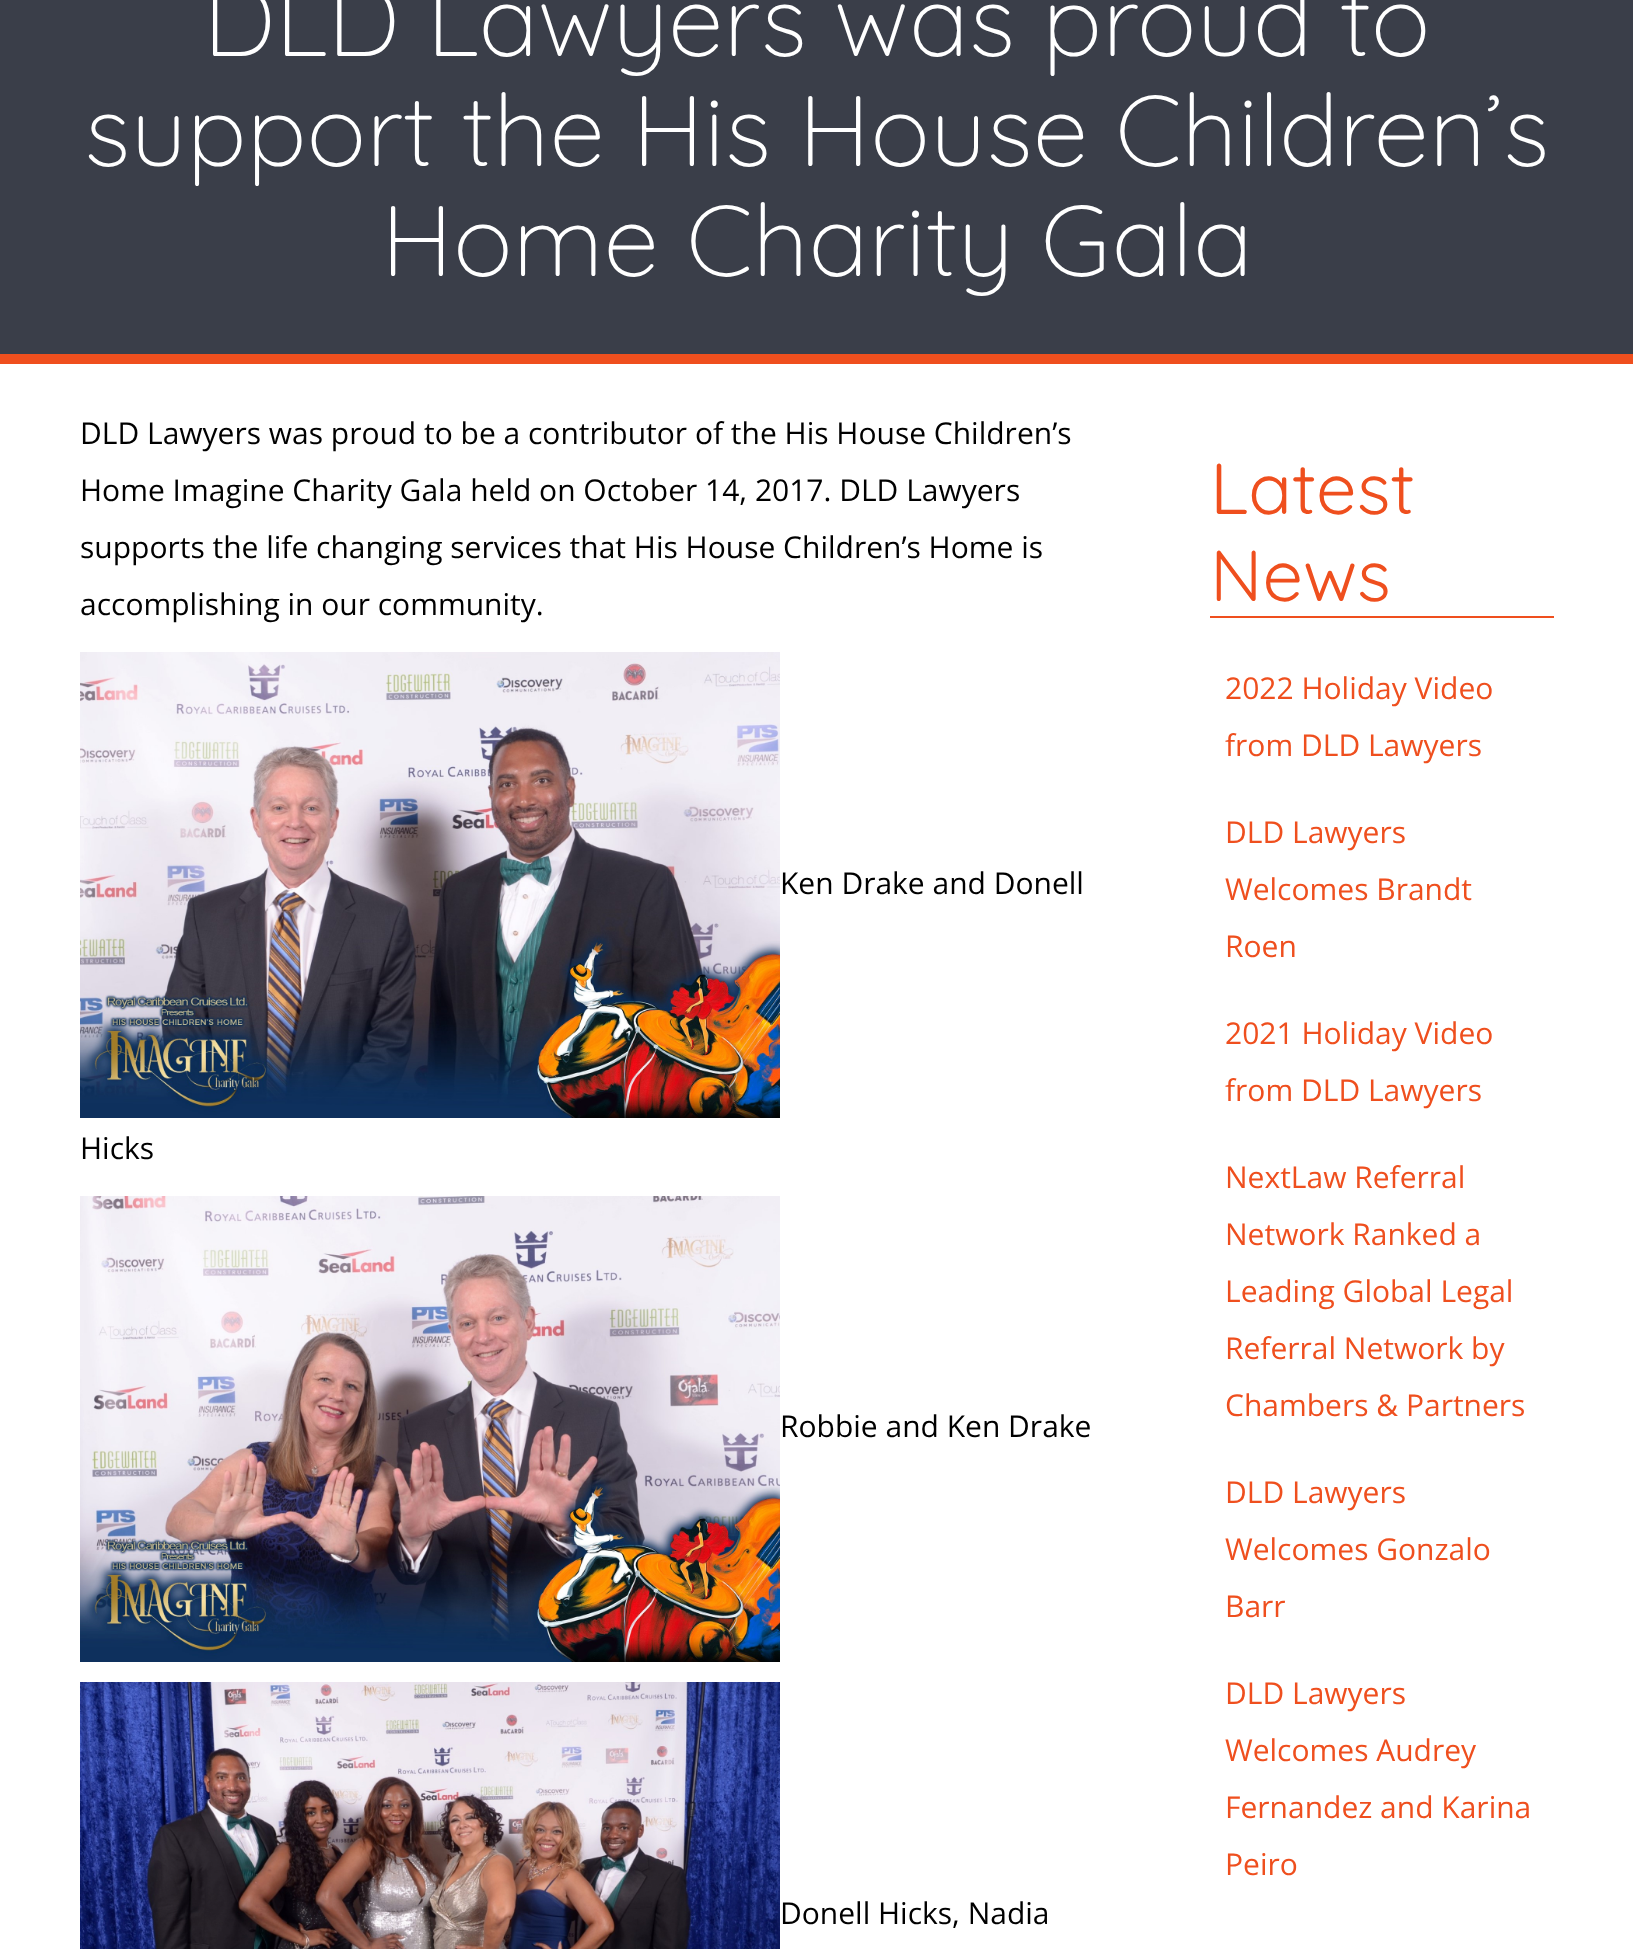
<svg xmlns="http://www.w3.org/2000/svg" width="1633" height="1949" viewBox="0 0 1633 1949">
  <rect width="100%" height="100%" fill="#3a3e49"/>
  <rect x="0" y="354" width="1633" height="10" fill="#ef4f1e"/>
  <text x="203" y="56" font-family="Quicksand" font-size="100" font-weight="300" fill="#ffffff">DLD Lawyers was proud to</text>
  <text x="84" y="166" font-family="Quicksand" font-size="100" font-weight="300" fill="#ffffff">support the His House Children’s</text>
  <text x="381" y="276" font-family="Quicksand" font-size="100" font-weight="300" fill="#ffffff">Home Charity Gala</text>
  <rect x="0" y="364" width="1633" height="1585" fill="#ffffff"/>
  <text x="80" y="444" font-family="Open Sans" font-size="30" fill="#000000">DLD Lawyers was proud to be a contributor of the His House Children’s</text>
  <text x="80" y="501" font-family="Open Sans" font-size="30" fill="#000000">Home Imagine Charity Gala held on October 14, 2017. DLD Lawyers</text>
  <text x="80" y="558" font-family="Open Sans" font-size="30" fill="#000000">supports the life changing services that His House Children’s Home is</text>
  <text x="80" y="615" font-family="Open Sans" font-size="30" fill="#000000">accomplishing in our community.</text>
  <image x="80" y="652" width="700" height="466" href="img1.png"/>
  <text x="780" y="894" font-family="Open Sans" font-size="30" fill="#000000">Ken Drake and Donell</text>
  <text x="80" y="1159" font-family="Open Sans" font-size="30" fill="#000000">Hicks</text>
  <image x="80" y="1196" width="700" height="466" href="img2.png"/>
  <text x="780" y="1437" font-family="Open Sans" font-size="30" fill="#000000">Robbie and Ken Drake</text>
  <image x="80" y="1682" width="700" height="267" href="img3.png"/>
  <text x="780" y="1924" font-family="Open Sans" font-size="30" fill="#000000">Donell Hicks, Nadia</text>
  <rect x="1210" y="616" width="344" height="2" fill="#ef4f1e"/>
  <text x="1210" y="514" font-family="Quicksand" font-size="72" fill="#ef4f1e">Latest</text>
  <text x="1210" y="601" font-family="Quicksand" font-size="72" fill="#ef4f1e">News</text>
  <text x="1225" y="699" font-family="Open Sans" font-size="30" fill="#ef4f1e">2022 Holiday Video</text>
  <text x="1225" y="756" font-family="Open Sans" font-size="30" fill="#ef4f1e">from DLD Lawyers</text>
  <text x="1225" y="843" font-family="Open Sans" font-size="30" fill="#ef4f1e">DLD Lawyers</text>
  <text x="1225" y="900" font-family="Open Sans" font-size="30" fill="#ef4f1e">Welcomes Brandt</text>
  <text x="1225" y="957" font-family="Open Sans" font-size="30" fill="#ef4f1e">Roen</text>
  <text x="1225" y="1044" font-family="Open Sans" font-size="30" fill="#ef4f1e">2021 Holiday Video</text>
  <text x="1225" y="1101" font-family="Open Sans" font-size="30" fill="#ef4f1e">from DLD Lawyers</text>
  <text x="1225" y="1188" font-family="Open Sans" font-size="30" fill="#ef4f1e">NextLaw Referral</text>
  <text x="1225" y="1245" font-family="Open Sans" font-size="30" fill="#ef4f1e">Network Ranked a</text>
  <text x="1225" y="1302" font-family="Open Sans" font-size="30" fill="#ef4f1e">Leading Global Legal</text>
  <text x="1225" y="1359" font-family="Open Sans" font-size="30" fill="#ef4f1e">Referral Network by</text>
  <text x="1225" y="1416" font-family="Open Sans" font-size="30" fill="#ef4f1e">Chambers &amp; Partners</text>
  <text x="1225" y="1503" font-family="Open Sans" font-size="30" fill="#ef4f1e">DLD Lawyers</text>
  <text x="1225" y="1560" font-family="Open Sans" font-size="30" fill="#ef4f1e">Welcomes Gonzalo</text>
  <text x="1225" y="1617" font-family="Open Sans" font-size="30" fill="#ef4f1e">Barr</text>
  <text x="1225" y="1704" font-family="Open Sans" font-size="30" fill="#ef4f1e">DLD Lawyers</text>
  <text x="1225" y="1761" font-family="Open Sans" font-size="30" fill="#ef4f1e">Welcomes Audrey</text>
  <text x="1225" y="1818" font-family="Open Sans" font-size="30" fill="#ef4f1e">Fernandez and Karina</text>
  <text x="1225" y="1875" font-family="Open Sans" font-size="30" fill="#ef4f1e">Peiro</text>
</svg>
